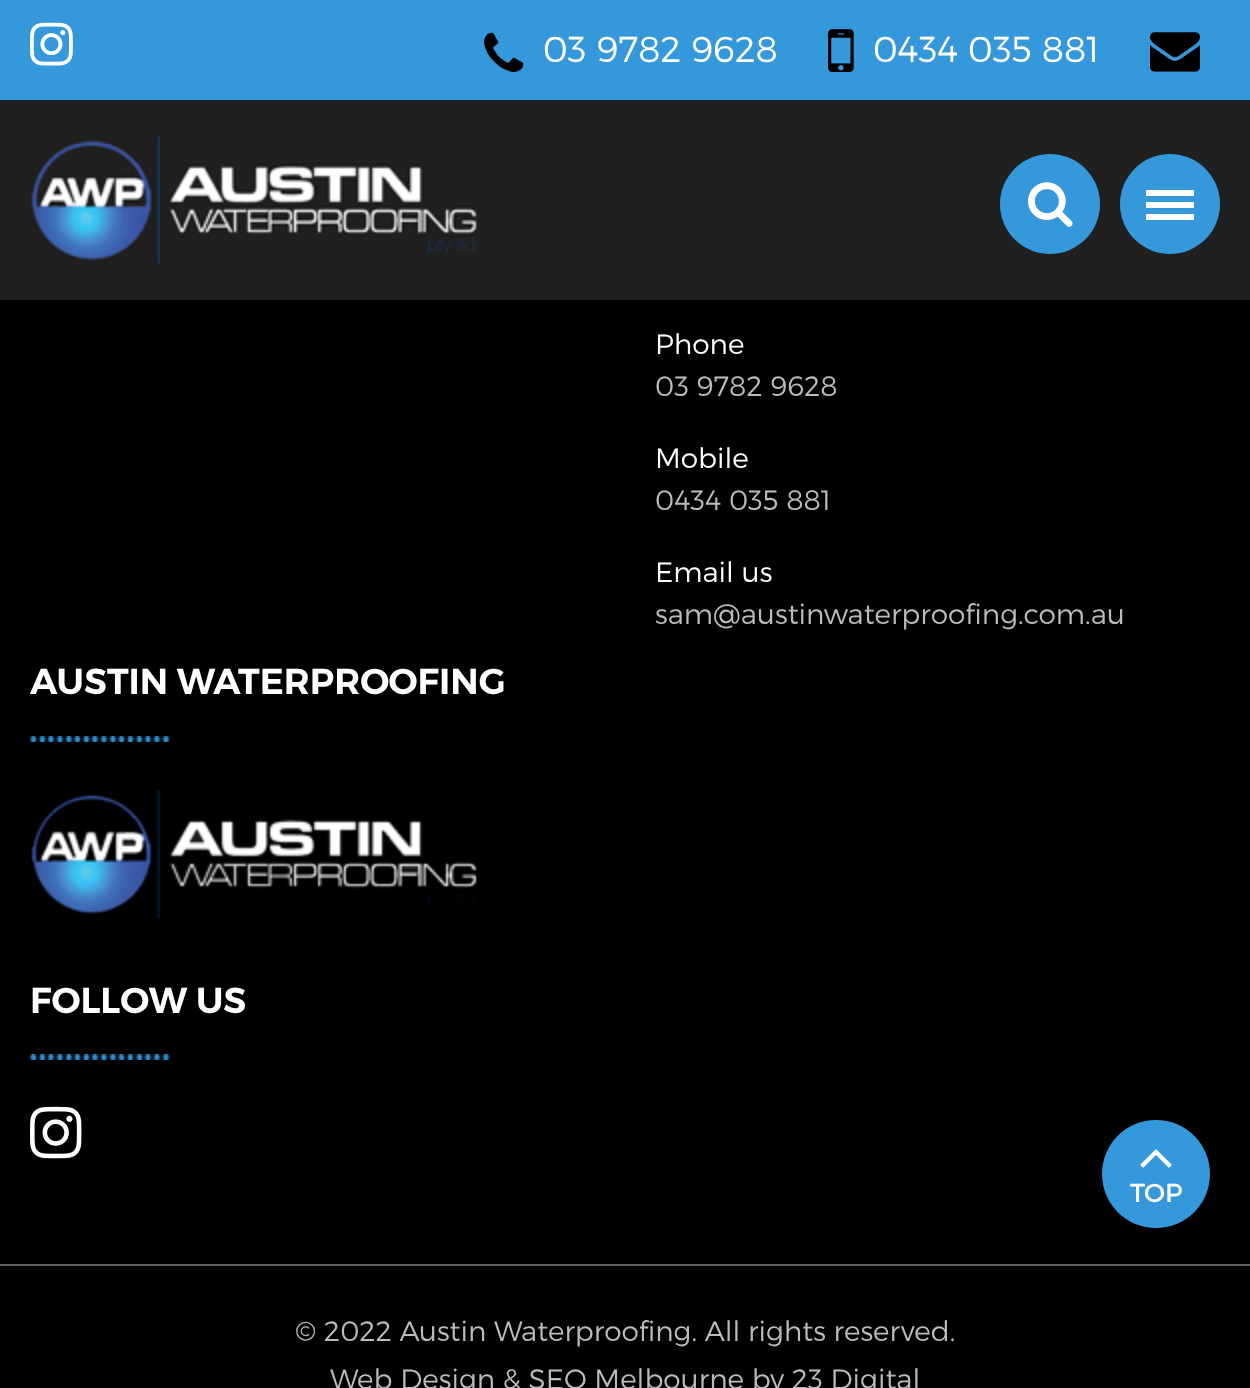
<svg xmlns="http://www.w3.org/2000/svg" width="1250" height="1388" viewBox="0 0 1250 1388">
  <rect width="100%" height="100%" fill="#000000"/>
  <rect x="0" y="100" width="1250" height="200" fill="#202020"/>
  <rect x="0" y="0" width="1250" height="100" fill="#3498db"/>
  <image x="30" y="22" width="43" height="44" href="img1.png"/>
  <image x="484" y="32" width="40" height="40" href="img2.png"/>
  <text x="543" y="62" font-family="Montserrat" font-size="36" font-weight="300" fill="#ffffff">03 9782 9628</text>
  <image x="828" y="29" width="26" height="43" href="img3.png"/>
  <text x="873" y="62" font-family="Montserrat" font-size="36" font-weight="300" fill="#ffffff">0434 035 881</text>
  <image x="1150" y="32" width="50" height="40" href="img4.png"/>
  <image x="31" y="135" width="446" height="130" href="img5.png"/>
  <circle cx="1050" cy="204" r="50" fill="#3498db"/>
  <image x="1028" y="182" width="45" height="45" href="img6.png"/>
  <circle cx="1170" cy="204" r="50" fill="#3498db"/>
  <rect x="1146" y="190" width="48" height="6" fill="#ffffff"/>
  <rect x="1146" y="202" width="48" height="6" fill="#ffffff"/>
  <rect x="1146" y="214" width="48" height="6" fill="#ffffff"/>
  <rect x="0" y="1264" width="1250" height="2" fill="#606060"/>
  <text x="655" y="354" font-family="Montserrat" font-size="28" font-weight="300" fill="#ffffff">Phone</text>
  <text x="655" y="396" font-family="Montserrat" font-size="28" font-weight="300" fill="#bbbbbb">03 9782 9628</text>
  <text x="655" y="468" font-family="Montserrat" font-size="28" font-weight="300" fill="#ffffff">Mobile</text>
  <text x="655" y="510" font-family="Montserrat" font-size="28" font-weight="300" fill="#bbbbbb">0434 035 881</text>
  <text x="655" y="582" font-family="Montserrat" font-size="28" font-weight="300" fill="#ffffff">Email us</text>
  <text x="655" y="624" font-family="Montserrat" font-size="28" font-weight="300" fill="#bbbbbb">sam@austinwaterproofing.com.au</text>
  <text x="30" y="694" font-family="Montserrat" font-size="36" font-weight="600" fill="#ffffff">AUSTIN WATERPROOFING</text>
  <image x="30" y="736" width="140" height="6" href="img7.png"/>
  <image x="31" y="789" width="446" height="130" href="img8.png"/>
  <text x="30" y="1013" font-family="Montserrat" font-size="36" font-weight="600" fill="#ffffff">FOLLOW US</text>
  <image x="30" y="1054" width="140" height="6" href="img7.png"/>
  <image x="30" y="1106" width="52" height="53" href="img9.png"/>
  <text x="295" y="1341" font-family="Montserrat" font-size="28" font-weight="300" fill="#bbbbbb">© 2022 Austin Waterproofing. All rights reserved.</text>
  <text x="330" y="1389" font-family="Montserrat" font-size="28" font-weight="300" fill="#bbbbbb">Web Design &amp; SEO Melbourne by 23 Digital</text>
  <circle cx="1156" cy="1174" r="54" fill="#3498db"/>
  <image x="1140" y="1149" width="32" height="19" href="img10.png"/>
  <text x="1130" y="1202" font-family="Montserrat" font-size="26" fill="#ffffff">TOP</text>
</svg>
